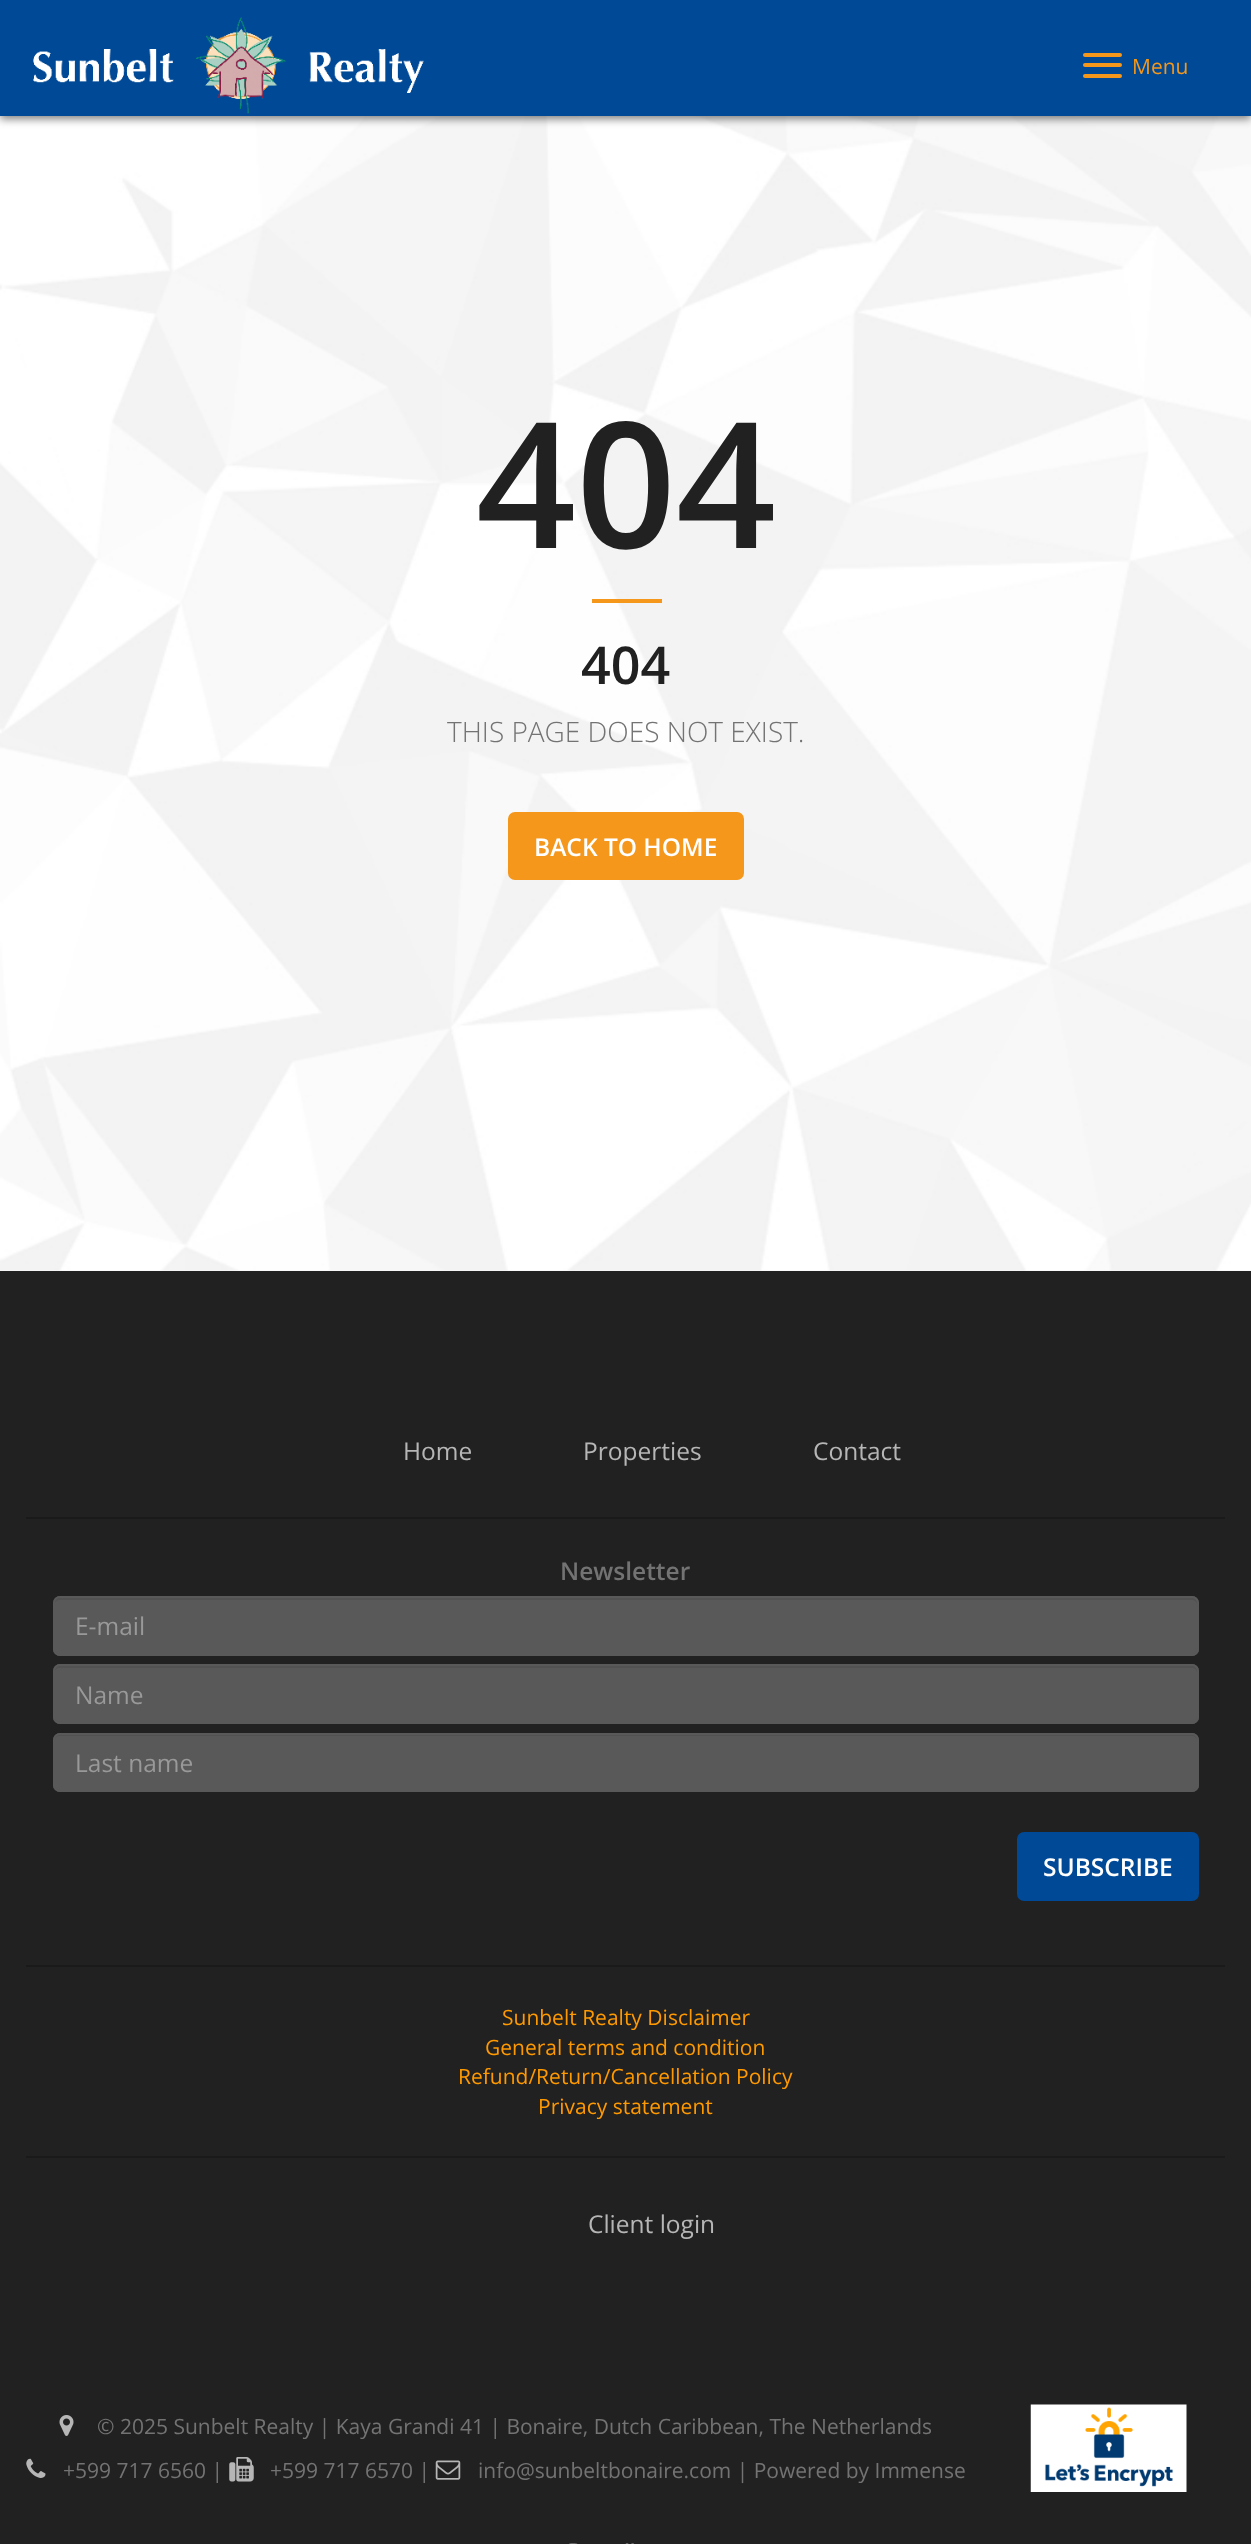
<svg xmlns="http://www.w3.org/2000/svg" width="1251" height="2544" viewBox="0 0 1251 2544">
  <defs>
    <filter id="blur1" x="-50%" y="-200%" width="200%" height="500%"><feGaussianBlur stdDeviation="4.5"/></filter>
  </defs>
  <rect width="100%" height="100%" fill="#f7f7f7"/>
  <image x="0" y="116" width="1251" height="1155" href="img2.png"/>
  <rect x="0" y="4" width="1251" height="115" fill="#000000" fill-opacity="0.5" filter="url(#blur1)"/>
  <rect x="0" y="0" width="1251" height="116" fill="#004996"/>
  <image x="33" y="17" width="391" height="97" href="img1.png"/>
  <rect x="1083" y="53" width="39" height="4" rx="2" fill="#f4971a"/>
  <rect x="1083" y="63" width="39" height="4" rx="2" fill="#f4971a"/>
  <rect x="1083" y="74" width="39" height="4" rx="2" fill="#f4971a"/>
  <text x="1132" y="74" font-family="Open Sans" font-size="21" fill="#f4971a">Menu</text>
  <text x="476" y="548" font-family="Open Sans" font-size="175" font-weight="600" fill="#212121">404</text>
  <rect x="592" y="599" width="70" height="4" fill="#f4971a"/>
  <text x="581" y="684" font-family="Open Sans" font-size="52" font-weight="600" fill="#212121">404</text>
  <text x="447" y="742" font-family="Open Sans" font-size="28" font-weight="300" fill="#737373">THIS PAGE DOES NOT EXIST.</text>
  <rect x="508" y="812" width="236" height="68" rx="7" fill="#f4971a"/>
  <text x="534" y="856" font-family="Open Sans" font-size="24.5" font-weight="600" fill="#ffffff">BACK TO HOME</text>
  <rect x="0" y="1271" width="1251" height="1273" fill="#212121"/>
  <text x="403" y="1460" font-family="Open Sans" font-size="24.5" fill="#b6b6b6">Home</text>
  <text x="583" y="1460" font-family="Open Sans" font-size="24.5" fill="#b6b6b6">Properties</text>
  <text x="813" y="1460" font-family="Open Sans" font-size="24.5" fill="#b6b6b6">Contact</text>
  <rect x="26" y="1517" width="1199" height="2" fill="#1a1a1a"/>
  <text x="560" y="1580" font-family="Open Sans" font-size="24.5" font-weight="600" fill="#737373">Newsletter</text>
  <rect x="53" y="1596" width="1146" height="60" rx="7" fill="#595959"/>
  <path d="M60 1600H1192C1195 1600 1197 1602 1197 1605V1603C1197 1600 1195 1598 1192 1598H59C56 1598 54 1600 54 1603V1605C54 1602 57 1600 60 1600Z" fill="#525252"/>
  <rect x="54" y="1597" width="1144" height="58" rx="6" fill="none" stroke="#595959" stroke-width="2"/>
  <text x="75" y="1635" font-family="Open Sans" font-size="24.5" fill="#999999">E-mail</text>
  <rect x="53" y="1664" width="1146" height="60" rx="7" fill="#595959"/>
  <path d="M60 1668H1192C1195 1668 1197 1670 1197 1673V1671C1197 1668 1195 1666 1192 1666H59C56 1666 54 1668 54 1671V1673C54 1670 57 1668 60 1668Z" fill="#525252"/>
  <rect x="54" y="1665" width="1144" height="58" rx="6" fill="none" stroke="#595959" stroke-width="2"/>
  <text x="75" y="1704" font-family="Open Sans" font-size="24.5" fill="#999999">Name</text>
  <rect x="53" y="1733" width="1146" height="59" rx="7" fill="#595959"/>
  <path d="M60 1736H1192C1195 1736 1197 1738 1197 1741V1739C1197 1736 1195 1734 1192 1734H59C56 1734 54 1736 54 1739V1741C54 1738 57 1736 60 1736Z" fill="#525252"/>
  <rect x="54" y="1734" width="1144" height="57" rx="6" fill="none" stroke="#595959" stroke-width="2"/>
  <text x="75" y="1772" font-family="Open Sans" font-size="24.5" fill="#999999">Last name</text>
  <rect x="1017" y="1832" width="182" height="69" rx="7" fill="#004996"/>
  <text x="1043" y="1876" font-family="Open Sans" font-size="24.5" font-weight="600" fill="#ffffff">SUBSCRIBE</text>
  <rect x="26" y="1965" width="1199" height="2" fill="#1a1a1a"/>
  <text x="502" y="2025" font-family="Open Sans" font-size="21" fill="#ff9900">Sunbelt Realty Disclaimer</text>
  <text x="485" y="2055" font-family="Open Sans" font-size="21" fill="#ff9900">General terms and condition</text>
  <text x="458" y="2084" font-family="Open Sans" font-size="21" fill="#ff9900">Refund/Return/Cancellation Policy</text>
  <text x="538" y="2114" font-family="Open Sans" font-size="21" fill="#ff9900">Privacy statement</text>
  <rect x="26" y="2156" width="1199" height="2" fill="#1a1a1a"/>
  <text x="588" y="2233" font-family="Open Sans" font-size="24.5" fill="#b6b6b6">Client login</text>
  <image x="59" y="2415" width="15" height="21" href="img3.png"/>
  <text x="97" y="2434" font-family="Open Sans" font-size="21" fill="#737373">© 2025 Sunbelt Realty | Kaya Grandi 41 | Bonaire, Dutch Caribbean, The Netherlands</text>
  <image x="26" y="2458" width="20" height="20" href="img4.png"/>
  <text x="63" y="2478" font-family="Open Sans" font-size="21" fill="#737373">+599 717 6560 |</text>
  <image x="229" y="2457" width="25" height="25" href="img5.png"/>
  <text x="270" y="2478" font-family="Open Sans" font-size="21" fill="#737373">+599 717 6570 |</text>
  <image x="435" y="2460" width="26" height="20" href="img6.png"/>
  <text x="478" y="2478" font-family="Open Sans" font-size="21" fill="#737373">info@sunbeltbonaire.com | Powered by Immense</text>
  <image x="1030" y="2404" width="157" height="88" href="img7.png"/>
  <image x="569" y="2543" width="9" height="1" href="img8.png"/>
  <image x="625" y="2543" width="9" height="1" href="img9.png"/>
</svg>
